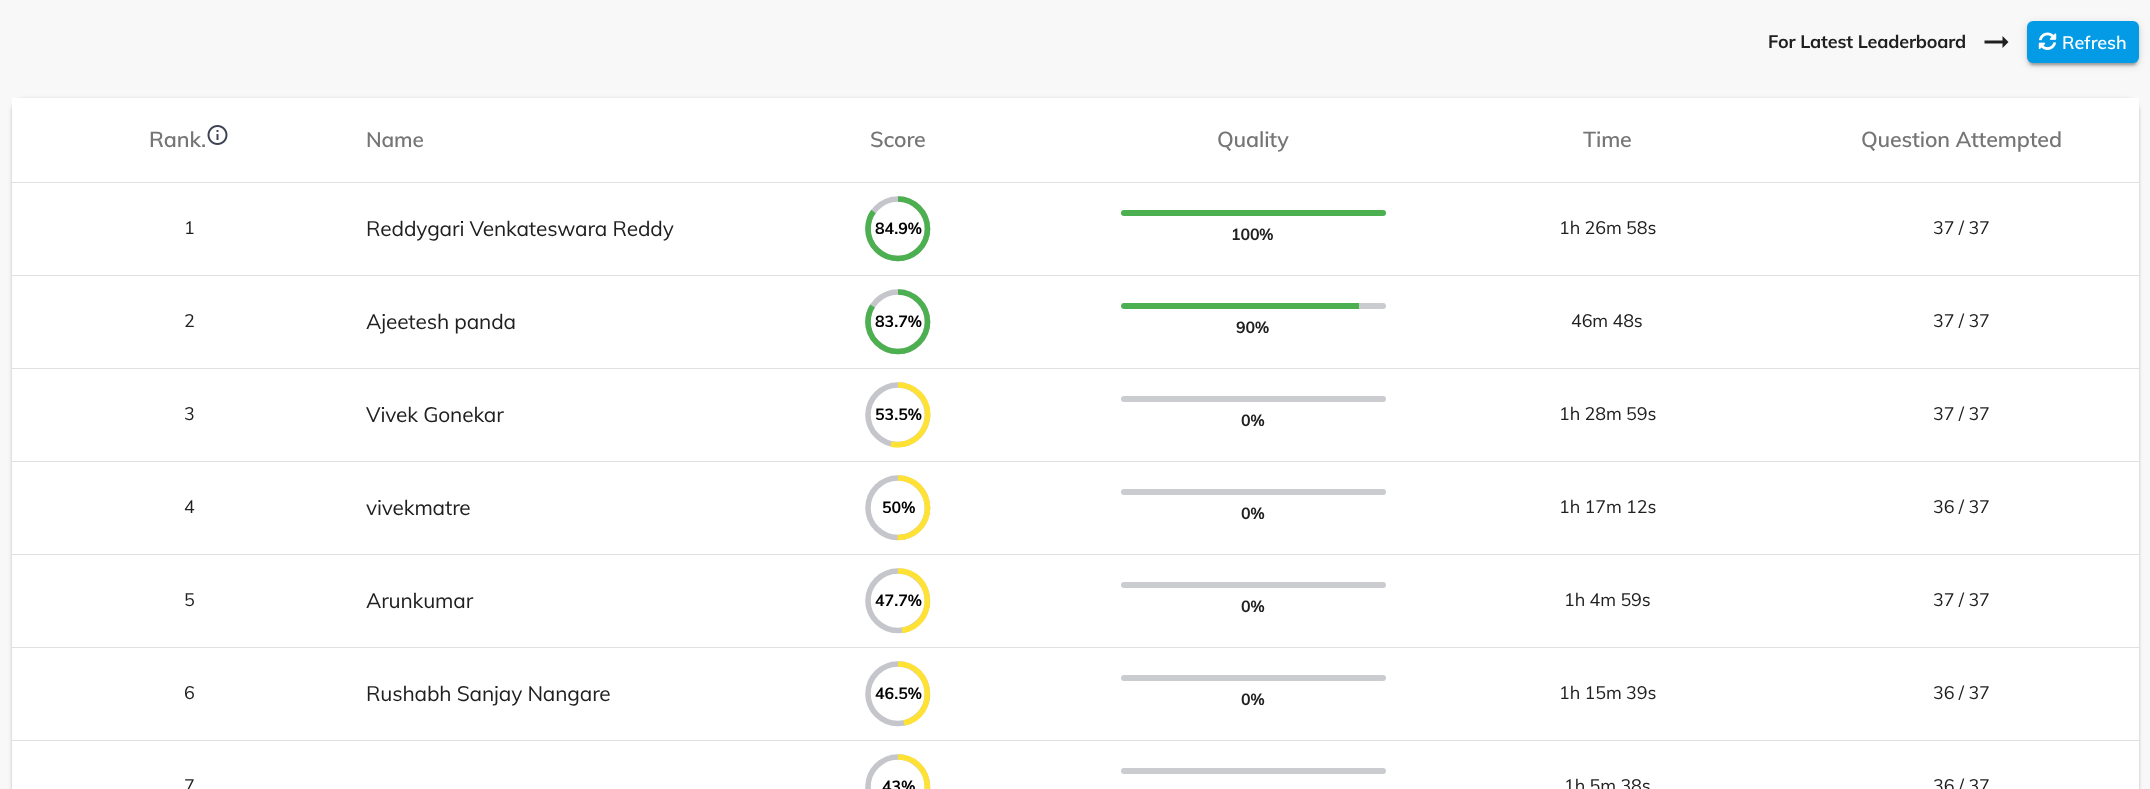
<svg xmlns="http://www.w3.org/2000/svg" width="2150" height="789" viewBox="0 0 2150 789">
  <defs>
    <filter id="blur1" x="-50%" y="-200%" width="200%" height="500%"><feGaussianBlur stdDeviation="4"/></filter>
    <filter id="blur2" x="-50%" y="-200%" width="200%" height="500%"><feGaussianBlur stdDeviation="1.5"/></filter>
    <filter id="blur3" x="-50%" y="-200%" width="200%" height="500%"><feGaussianBlur stdDeviation="1"/></filter>
    <filter id="blur4" x="-50%" y="-200%" width="200%" height="500%"><feGaussianBlur stdDeviation="2"/></filter>
  </defs>
  <rect width="100%" height="100%" fill="#f8f8f8"/>
  <text x="1768" y="48" font-family="Muli" font-size="18" font-weight="bold" letter-spacing="-0.15" fill="#202020">For Latest Leaderboard</text>
  <path d="M2002.5 40.5H1984.5V43.5H2002.5V48L2008.5 42L2002.5 36Z" fill="#202020"/>
  <rect x="2027" y="23" width="112" height="42" rx="6" fill="#000000" fill-opacity="0.12" filter="url(#blur1)"/>
  <rect x="2027" y="24" width="112" height="42" rx="6" fill="#000000" fill-opacity="0.14" filter="url(#blur2)"/>
  <rect x="2030" y="29" width="106" height="36" rx="3" fill="#000000" fill-opacity="0.2" filter="url(#blur3)"/>
  <rect x="2027" y="21" width="112" height="42" rx="6" fill="#039be5"/>
  <image x="2038" y="32" width="19" height="18" href="img1.png"/>
  <text x="2062" y="49" font-family="Muli" font-size="18" font-weight="600" fill="#ffffff">Refresh</text>
  <rect x="12" y="99" width="2127" height="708" rx="12" fill="#000000" fill-opacity="0.12" filter="url(#blur4)"/>
  <rect x="12" y="99" width="2127" height="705" rx="12" fill="#000000" fill-opacity="0.14" filter="url(#blur3)"/>
  <rect x="12" y="98" width="2127" height="84" fill="#ffffff"/>
  <rect x="12" y="182" width="2127" height="1" fill="#e0e0e0"/>
  <text x="149" y="147" font-family="Muli" font-size="21.5" font-weight="600" letter-spacing="-0.15" fill="#757575">Rank.</text>
  <image x="207" y="125" width="21" height="20" href="img2.png"/>
  <text x="366" y="147" font-family="Muli" font-size="20.9" font-weight="600" letter-spacing="-0.15" fill="#757575">Name</text>
  <text x="870" y="147" font-family="Muli" font-size="21.5" font-weight="600" letter-spacing="-0.15" fill="#757575">Score</text>
  <text x="1217" y="147" font-family="Muli" font-size="21.5" font-weight="600" letter-spacing="-0.15" fill="#757575">Quality</text>
  <text x="1583" y="147" font-family="Muli" font-size="21.5" font-weight="600" letter-spacing="-0.15" fill="#757575">Time</text>
  <text x="1861" y="147" font-family="Muli" font-size="21.5" font-weight="600" letter-spacing="-0.15" fill="#757575">Question Attempted</text>
  <rect x="12" y="183" width="2127" height="92" fill="#ffffff"/>
  <rect x="12" y="275" width="2127" height="1" fill="#e0e0e0"/>
  <text x="184" y="234" font-family="Muli" font-size="18" letter-spacing="-0.15" fill="#202020">1</text>
  <text x="366" y="236" font-family="Muli" font-size="20.9" letter-spacing="-0.15" fill="#202020">Reddygari Venkateswara Reddy</text>
  <path d="M898 199C914 199 927.5 212.5 927.5 229C927.5 245 914 258.5 898 258.5C881.5 258.5 868 245 868 229C868 212.5 881.5 199 898 199" fill="none" stroke="#c5c6cb" stroke-width="5.6"/>
  <path d="M898 199C914 199 927.5 212.5 927.5 229C927.5 245 914 258.5 898 258.5C881.5 258.5 868 245 868 229C868 222 870 216 873.5 211.5" fill="none" stroke="#4caf50" stroke-width="5.6"/>
  <text x="875" y="234" font-family="Muli" font-size="16" font-weight="bold" fill="#000000">84.9%</text>
  <image x="1383" y="210" width="2" height="6" href="img3.png"/>
  <rect x="1121" y="210" width="265" height="6" rx="3" fill="#4caf50"/>
  <text x="1231" y="240" font-family="Muli" font-size="16" font-weight="bold" letter-spacing="-0.15" fill="#202020">100%</text>
  <text x="1559" y="234" font-family="Muli" font-size="18" letter-spacing="-0.15" fill="#202020">1h 26m 58s</text>
  <text x="1933" y="234" font-family="Muli" font-size="18" letter-spacing="-0.15" fill="#202020">37 / 37</text>
  <rect x="12" y="276" width="2127" height="92" fill="#ffffff"/>
  <rect x="12" y="368" width="2127" height="1" fill="#e0e0e0"/>
  <text x="184" y="327" font-family="Muli" font-size="18" letter-spacing="-0.15" fill="#202020">2</text>
  <text x="366" y="329" font-family="Muli" font-size="20.9" letter-spacing="-0.15" fill="#202020">Ajeetesh panda</text>
  <path d="M898 292C914 292 927.5 305.5 927.5 322C927.5 338 914 351.5 898 351.5C881.5 351.5 868 338 868 322C868 305.5 881.5 292 898 292" fill="none" stroke="#c5c6cb" stroke-width="5.6"/>
  <path d="M898 292C914 292 927.5 305.5 927.5 322C927.5 338 914 351.5 898 351.5C881.5 351.5 868 338 868 322C868 316 869.5 310.5 872.5 306" fill="none" stroke="#4caf50" stroke-width="5.6"/>
  <text x="875" y="327" font-family="Muli" font-size="16" font-weight="bold" fill="#000000">83.7%</text>
  <image x="1383" y="303" width="2" height="6" href="img3.png"/>
  <rect x="1121" y="303" width="265" height="6" rx="3" fill="#cbccd0"/>
  <path d="M1124 303H1359V309H1124C1122.5 309 1121 307.5 1121 306C1121 304.5 1122.5 303 1124 303Z" fill="#4caf50"/>
  <text x="1236" y="333" font-family="Muli" font-size="16" font-weight="bold" letter-spacing="-0.15" fill="#202020">90%</text>
  <text x="1571" y="327" font-family="Muli" font-size="18" letter-spacing="-0.15" fill="#202020">46m 48s</text>
  <text x="1933" y="327" font-family="Muli" font-size="18" letter-spacing="-0.15" fill="#202020">37 / 37</text>
  <rect x="12" y="369" width="2127" height="92" fill="#ffffff"/>
  <rect x="12" y="461" width="2127" height="1" fill="#e0e0e0"/>
  <text x="184" y="420" font-family="Muli" font-size="18" letter-spacing="-0.15" fill="#202020">3</text>
  <text x="366" y="422" font-family="Muli" font-size="20.9" letter-spacing="-0.15" fill="#202020">Vivek Gonekar</text>
  <path d="M898 385C914 385 927.5 398.5 927.5 415C927.5 431 914 444.5 898 444.5C881.5 444.5 868 431 868 415C868 398.5 881.5 385 898 385" fill="none" stroke="#c5c6cb" stroke-width="5.6"/>
  <path d="M898 385C903.5 385 909.5 386.5 914.5 390C942 408.5 922.5 451 891 444" fill="none" stroke="#ffe234" stroke-width="5.6"/>
  <text x="875" y="420" font-family="Muli" font-size="16" font-weight="bold" fill="#000000">53.5%</text>
  <image x="1383" y="396" width="2" height="6" href="img3.png"/>
  <rect x="1121" y="396" width="265" height="6" rx="3" fill="#cbccd0"/>
  <text x="1241" y="426" font-family="Muli" font-size="16" font-weight="bold" letter-spacing="-0.15" fill="#202020">0%</text>
  <text x="1559" y="420" font-family="Muli" font-size="18" letter-spacing="-0.15" fill="#202020">1h 28m 59s</text>
  <text x="1933" y="420" font-family="Muli" font-size="18" letter-spacing="-0.15" fill="#202020">37 / 37</text>
  <rect x="12" y="462" width="2127" height="92" fill="#ffffff"/>
  <rect x="12" y="554" width="2127" height="1" fill="#e0e0e0"/>
  <text x="184" y="513" font-family="Muli" font-size="18" letter-spacing="-0.15" fill="#202020">4</text>
  <text x="366" y="515" font-family="Muli" font-size="20.9" letter-spacing="-0.15" fill="#202020">vivekmatre</text>
  <path d="M898 478C914 478 927.5 491.5 927.5 508C927.5 524 914 537.5 898 537.5C881.5 537.5 868 524 868 508C868 491.5 881.5 478 898 478" fill="none" stroke="#c5c6cb" stroke-width="5.6"/>
  <path d="M898 478C927 478 938.5 516 914.5 532.5C909.5 536 903.5 537.5 897.5 537.5" fill="none" stroke="#ffe234" stroke-width="5.6"/>
  <text x="882" y="513" font-family="Muli" font-size="16" font-weight="bold" fill="#000000">50%</text>
  <image x="1383" y="489" width="2" height="6" href="img3.png"/>
  <rect x="1121" y="489" width="265" height="6" rx="3" fill="#cbccd0"/>
  <text x="1241" y="519" font-family="Muli" font-size="16" font-weight="bold" letter-spacing="-0.15" fill="#202020">0%</text>
  <text x="1559" y="513" font-family="Muli" font-size="18" letter-spacing="-0.15" fill="#202020">1h 17m 12s</text>
  <text x="1933" y="513" font-family="Muli" font-size="18" letter-spacing="-0.15" fill="#202020">36 / 37</text>
  <rect x="12" y="555" width="2127" height="92" fill="#ffffff"/>
  <rect x="12" y="647" width="2127" height="1" fill="#e0e0e0"/>
  <text x="184" y="606" font-family="Muli" font-size="18" letter-spacing="-0.15" fill="#202020">5</text>
  <text x="366" y="608" font-family="Muli" font-size="20.9" letter-spacing="-0.15" fill="#202020">Arunkumar</text>
  <path d="M898 571C914 571 927.5 584.5 927.5 601C927.5 617 914 630.5 898 630.5C881.5 630.5 868 617 868 601C868 584.5 881.5 571 898 571" fill="none" stroke="#c5c6cb" stroke-width="5.6"/>
  <path d="M898 571C934.5 571 938 625 902 630.5" fill="none" stroke="#ffe234" stroke-width="5.6"/>
  <text x="875" y="606" font-family="Muli" font-size="16" font-weight="bold" fill="#000000">47.7%</text>
  <image x="1383" y="582" width="2" height="6" href="img3.png"/>
  <rect x="1121" y="582" width="265" height="6" rx="3" fill="#cbccd0"/>
  <text x="1241" y="612" font-family="Muli" font-size="16" font-weight="bold" letter-spacing="-0.15" fill="#202020">0%</text>
  <text x="1564" y="606" font-family="Muli" font-size="18" letter-spacing="-0.15" fill="#202020">1h 4m 59s</text>
  <text x="1933" y="606" font-family="Muli" font-size="18" letter-spacing="-0.15" fill="#202020">37 / 37</text>
  <rect x="12" y="648" width="2127" height="92" fill="#ffffff"/>
  <rect x="12" y="740" width="2127" height="1" fill="#e0e0e0"/>
  <text x="184" y="699" font-family="Muli" font-size="18" letter-spacing="-0.15" fill="#202020">6</text>
  <text x="366" y="701" font-family="Muli" font-size="20.9" letter-spacing="-0.15" fill="#202020">Rushabh Sanjay Nangare</text>
  <path d="M898 664C914 664 927.5 677.5 927.5 694C927.5 710 914 723.5 898 723.5C881.5 723.5 868 710 868 694C868 677.5 881.5 664 898 664" fill="none" stroke="#c5c6cb" stroke-width="5.6"/>
  <path d="M898 664C933 664 938.5 715.5 904 723" fill="none" stroke="#ffe234" stroke-width="5.6"/>
  <text x="875" y="699" font-family="Muli" font-size="16" font-weight="bold" fill="#000000">46.5%</text>
  <image x="1383" y="675" width="2" height="6" href="img3.png"/>
  <rect x="1121" y="675" width="265" height="6" rx="3" fill="#cbccd0"/>
  <text x="1241" y="705" font-family="Muli" font-size="16" font-weight="bold" letter-spacing="-0.15" fill="#202020">0%</text>
  <text x="1559" y="699" font-family="Muli" font-size="18" letter-spacing="-0.15" fill="#202020">1h 15m 39s</text>
  <text x="1933" y="699" font-family="Muli" font-size="18" letter-spacing="-0.15" fill="#202020">36 / 37</text>
  <rect x="12" y="741" width="2127" height="48" fill="#ffffff"/>
  <image x="1383" y="768" width="2" height="6" href="img3.png"/>
  <rect x="1121" y="768" width="265" height="6" rx="3" fill="#cbccd0"/>
  <text x="184" y="792" font-family="Muli" font-size="18" letter-spacing="-0.15" fill="#202020">7</text>
  <path d="M898 757C914 757 927.5 770.5 927.5 787C927.5 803 914 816.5 898 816.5C881.5 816.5 868 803 868 787C868 770.5 881.5 757 898 757" fill="none" stroke="#c5c6cb" stroke-width="5.6"/>
  <path d="M898 757C929.5 757 938.5 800.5 910.5 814" fill="none" stroke="#ffe234" stroke-width="5.6"/>
  <text x="882" y="792" font-family="Muli" font-size="16" font-weight="bold" fill="#000000">43%</text>
  <text x="1564" y="792" font-family="Muli" font-size="18" letter-spacing="-0.15" fill="#202020">1h 5m 38s</text>
  <text x="1933" y="792" font-family="Muli" font-size="18" letter-spacing="-0.15" fill="#202020">36 / 37</text>
</svg>
